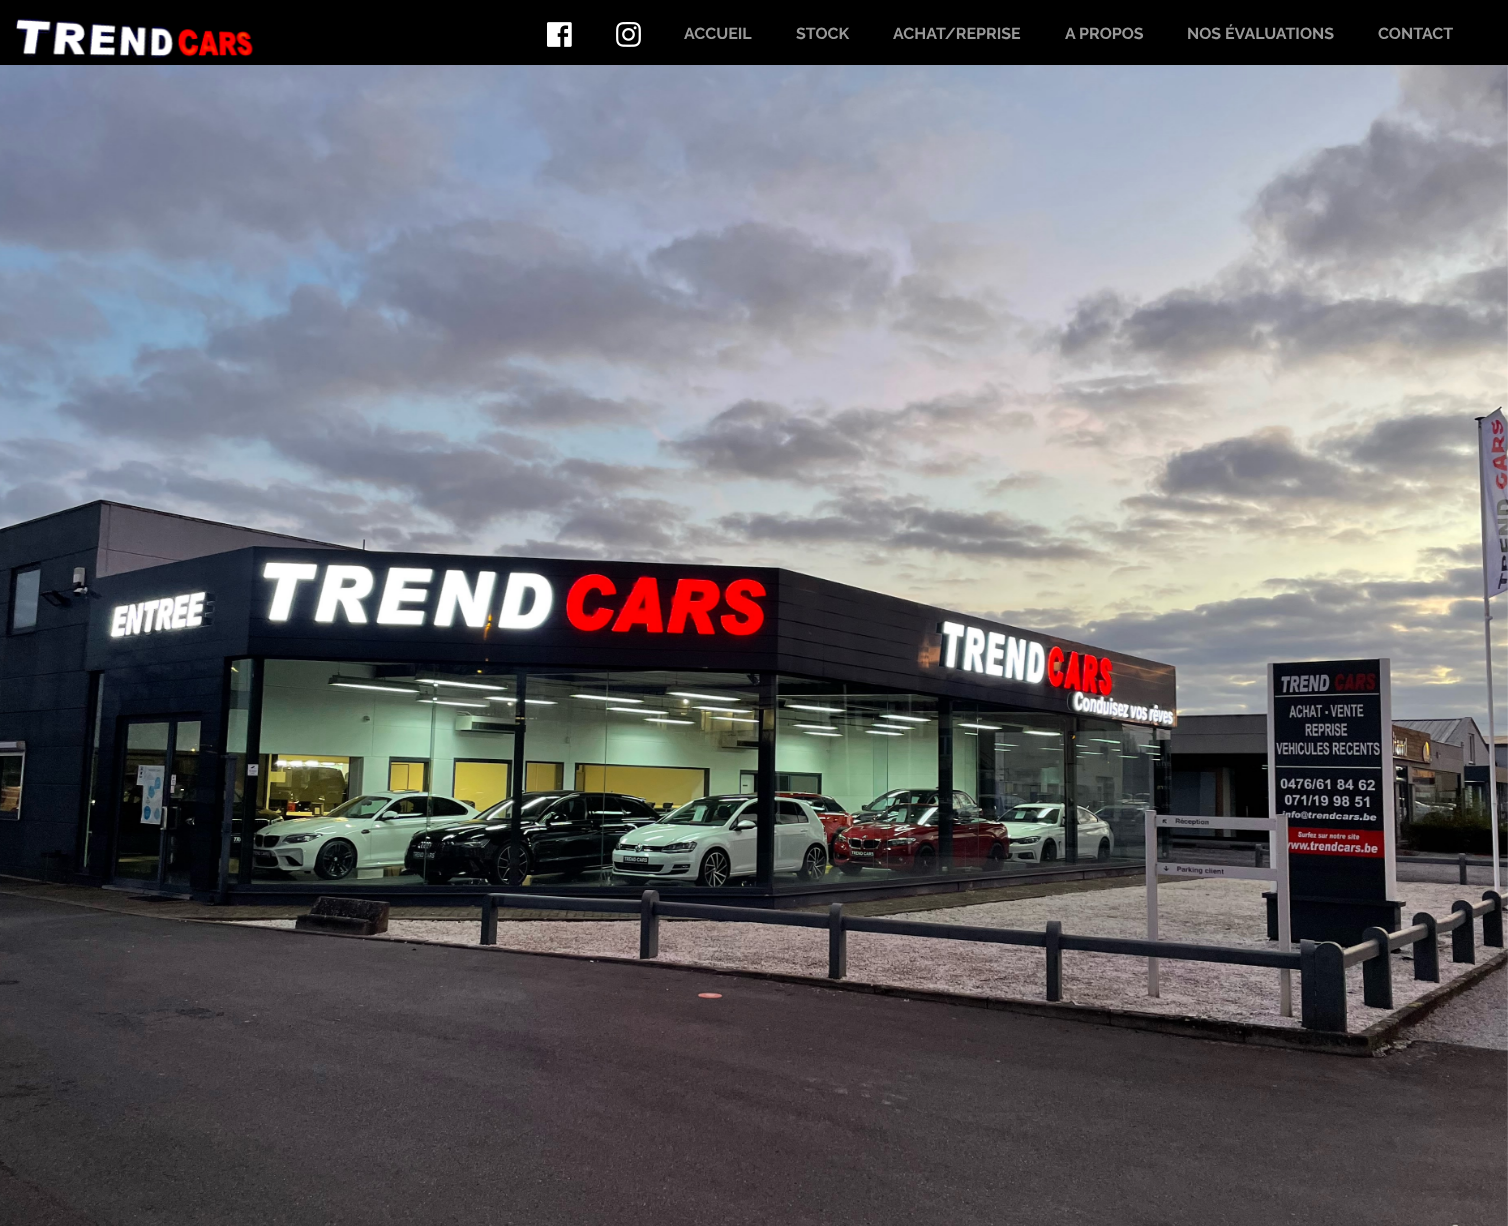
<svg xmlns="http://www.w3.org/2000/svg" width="1508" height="1226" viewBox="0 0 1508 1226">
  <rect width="100%" height="100%" fill="#ffffff"/>
  <rect x="0" y="0" width="1508" height="65" fill="#000000"/>
  <image x="15" y="18" width="239" height="41" href="img1.png"/>
  <image x="547" y="22" width="25" height="25" href="img2.png"/>
  <image x="616" y="22" width="25" height="25" href="img3.png"/>
  <text x="684" y="39" font-family="Raleway" font-size="16" font-weight="bold" fill="#989898">ACCUEIL</text>
  <text x="796" y="39" font-family="Raleway" font-size="16" font-weight="bold" fill="#989898">STOCK</text>
  <text x="893" y="39" font-family="Raleway" font-size="16" font-weight="bold" fill="#989898">ACHAT/REPRISE</text>
  <text x="1065" y="39" font-family="Raleway" font-size="16" font-weight="bold" fill="#989898">A PROPOS</text>
  <text x="1187" y="39" font-family="Raleway" font-size="16" font-weight="bold" fill="#989898">NOS ÉVALUATIONS</text>
  <text x="1378" y="39" font-family="Raleway" font-size="16" font-weight="bold" fill="#989898">CONTACT</text>
  <image x="0" y="65" width="1508" height="1161" href="img4.png"/>
</svg>
